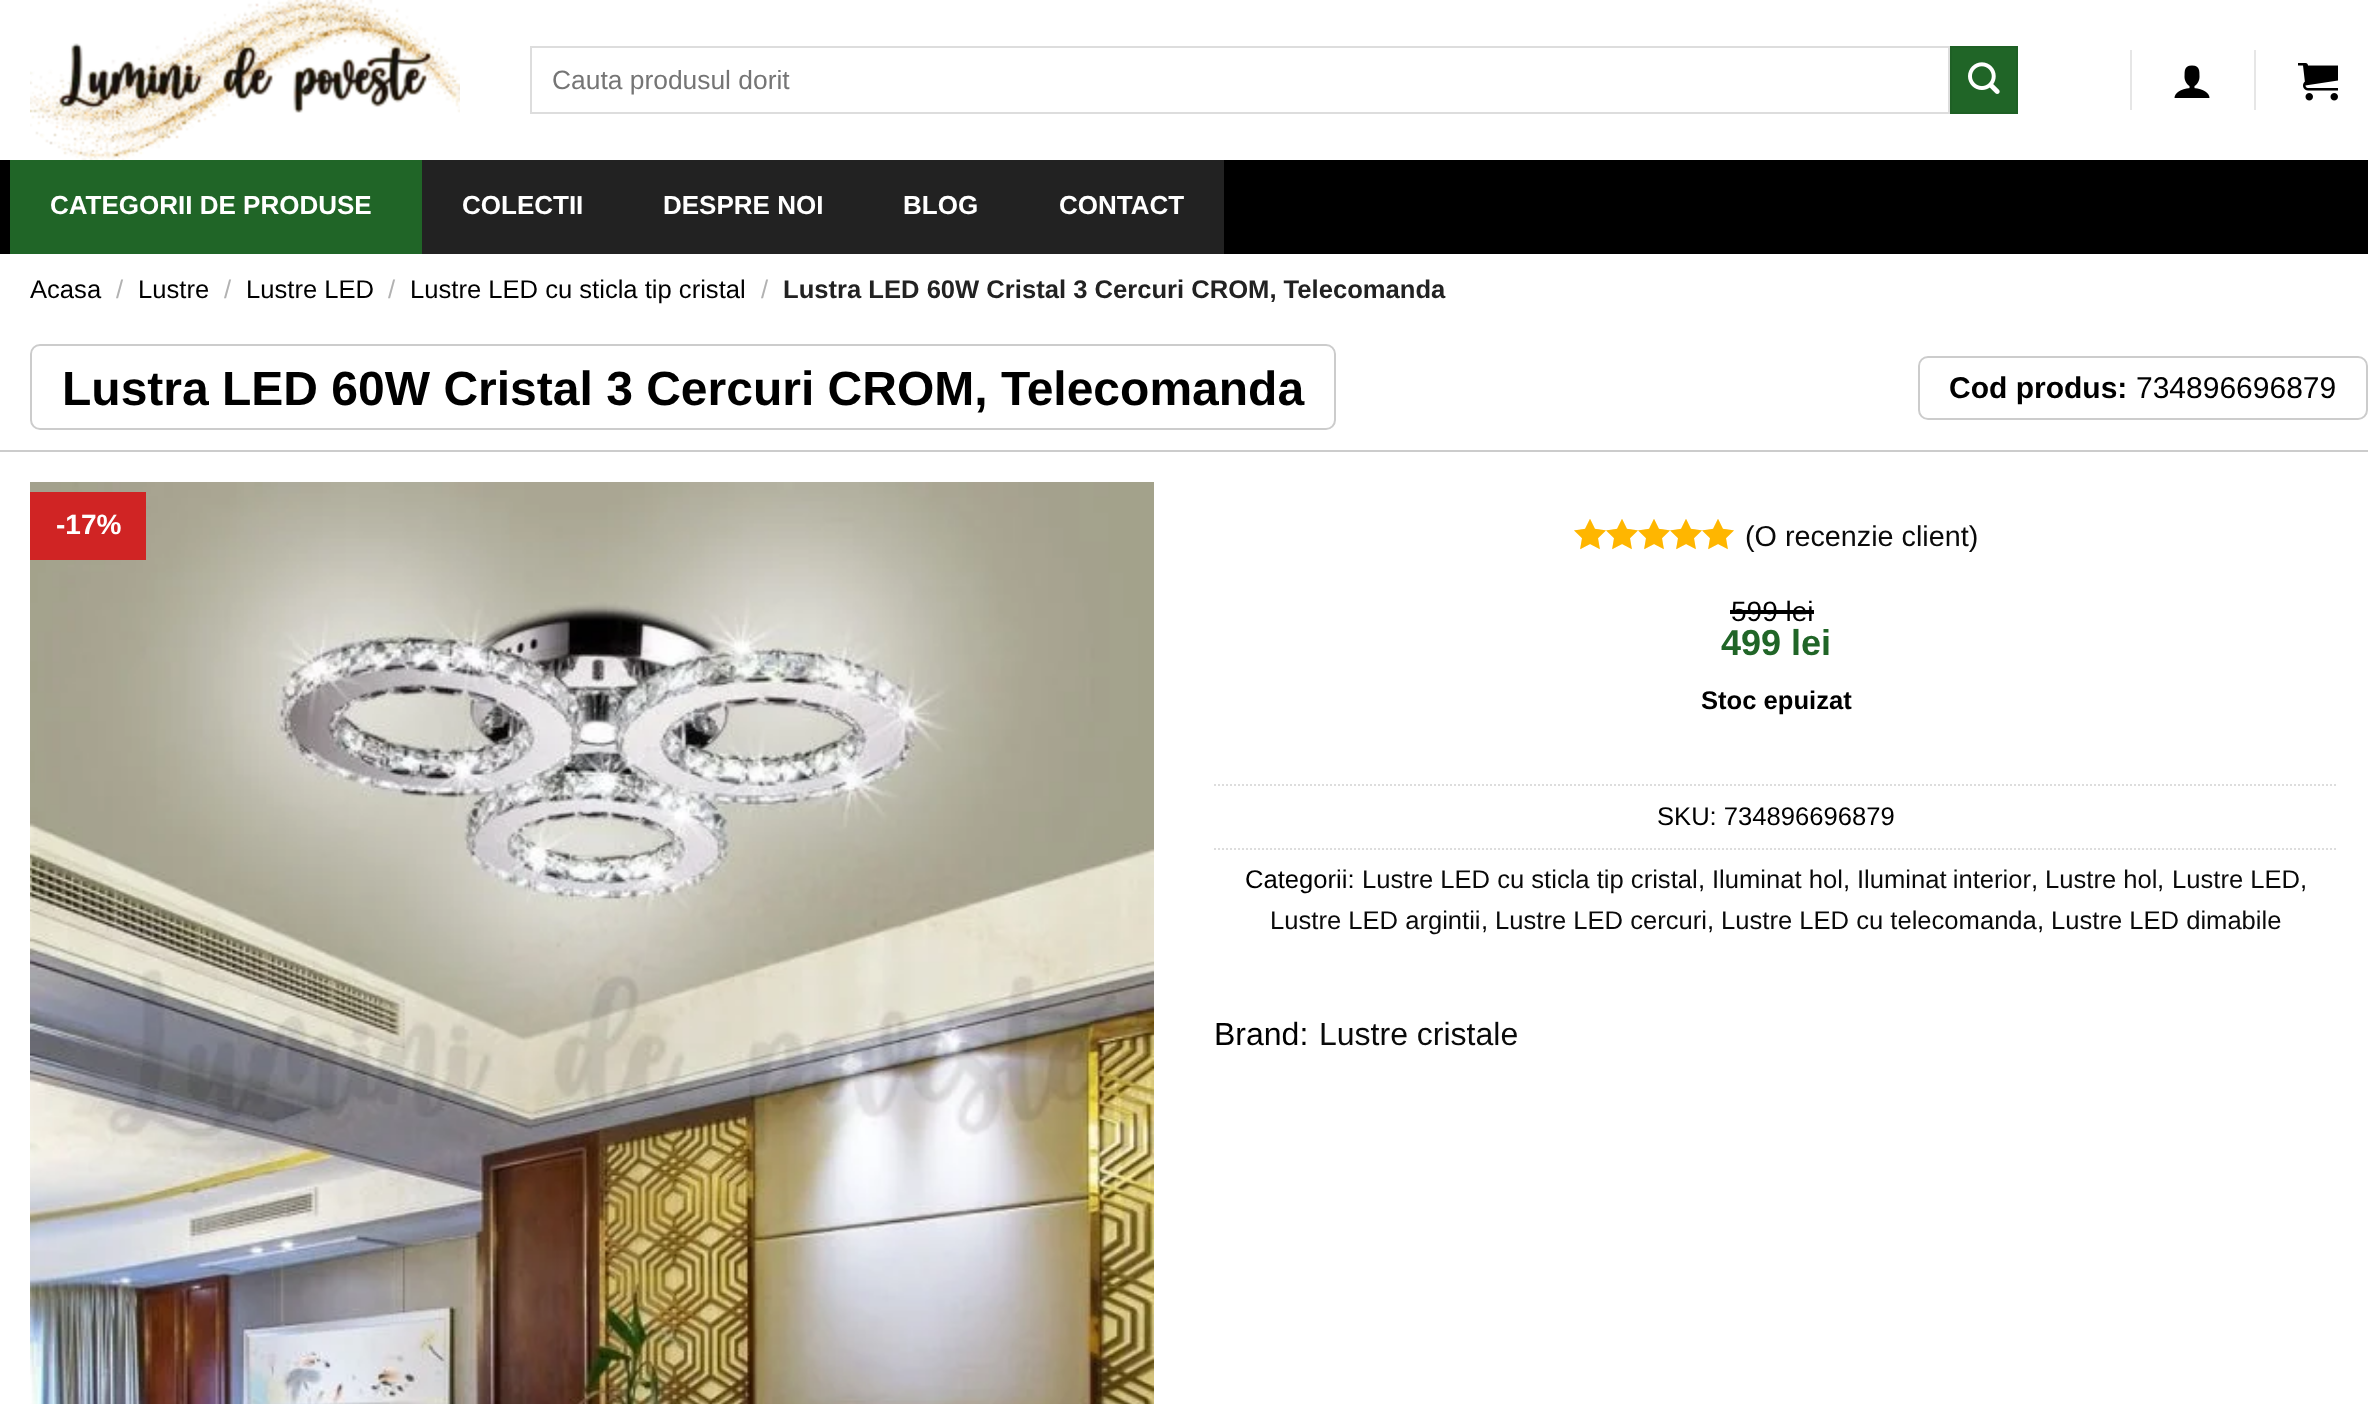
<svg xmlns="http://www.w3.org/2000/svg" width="2368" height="1404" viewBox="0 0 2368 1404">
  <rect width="100%" height="100%" fill="#ffffff"/>
  <image x="30" y="0" width="430" height="160" href="img1.png"/>
  <rect x="531" y="47" width="1418" height="66" fill="none" stroke="#dddddd" stroke-width="2"/>
  <text x="552" y="89" font-family="Liberation Sans" font-size="26.4" fill="#757575">Cauta produsul dorit</text>
  <rect x="1951" y="47" width="66" height="66" fill="#206527" stroke="#1e6025" stroke-width="2"/>
  <image x="1968" y="62" width="32" height="32" href="img2.png"/>
  <rect x="2130" y="50" width="2" height="60" fill="#e6e6e6"/>
  <image x="2174" y="65" width="36" height="33" href="img3.png"/>
  <rect x="2254" y="50" width="2" height="60" fill="#e6e6e6"/>
  <image x="2298" y="63" width="40" height="38" href="img4.png"/>
  <rect x="0" y="160" width="2368" height="94" fill="#000000"/>
  <rect x="422" y="160" width="802" height="94" fill="#222222"/>
  <rect x="10" y="160" width="412" height="94" fill="#206527"/>
  <text x="50" y="214" font-family="Liberation Sans" font-size="26" font-weight="bold" fill="#ffffff">CATEGORII DE PRODUSE</text>
  <text x="462" y="214" font-family="Liberation Sans" font-size="26" font-weight="bold" fill="#ffffff">COLECTII</text>
  <text x="663" y="214" font-family="Liberation Sans" font-size="26" font-weight="bold" fill="#ffffff">DESPRE NOI</text>
  <text x="903" y="214" font-family="Liberation Sans" font-size="26" font-weight="bold" fill="#ffffff">BLOG</text>
  <text x="1059" y="214" font-family="Liberation Sans" font-size="26" font-weight="bold" fill="#ffffff">CONTACT</text>
  <text x="30" y="298" font-family="Liberation Sans" font-size="25.6" fill="#000000">Acasa</text>
  <text x="116" y="298" font-family="Liberation Sans" font-size="25.6" fill="#b2b2b2">/</text>
  <text x="138" y="298" font-family="Liberation Sans" font-size="25.6" fill="#000000">Lustre</text>
  <text x="224" y="298" font-family="Liberation Sans" font-size="25.6" fill="#b2b2b2">/</text>
  <text x="246" y="298" font-family="Liberation Sans" font-size="25.6" fill="#000000">Lustre LED</text>
  <text x="388" y="298" font-family="Liberation Sans" font-size="25.6" fill="#b2b2b2">/</text>
  <text x="410" y="298" font-family="Liberation Sans" font-size="25.6" fill="#000000">Lustre LED cu sticla tip cristal</text>
  <text x="761" y="298" font-family="Liberation Sans" font-size="25.6" fill="#b2b2b2">/</text>
  <text x="783" y="298" font-family="Liberation Sans" font-size="25.6" font-weight="bold" fill="#222222">Lustra LED 60W Cristal 3 Cercuri CROM, Telecomanda</text>
  <rect x="0" y="450" width="2368" height="2" fill="#cccccc"/>
  <rect x="31" y="345" width="1304" height="84" rx="9" fill="none" stroke="#cccccc" stroke-width="2"/>
  <text x="62" y="405" font-family="Liberation Sans" font-size="48" font-weight="bold" fill="#000000">Lustra LED 60W Cristal 3 Cercuri CROM, Telecomanda</text>
  <rect x="1919" y="357" width="448" height="62" rx="9" fill="none" stroke="#cccccc" stroke-width="2"/>
  <text x="1949" y="398" font-family="Liberation Sans" font-size="30" font-weight="bold" fill="#000000">Cod produs:</text>
  <text x="2136" y="398" font-family="Liberation Sans" font-size="30" fill="#000000">734896696879</text>
  <image x="30" y="482" width="1124" height="922" href="img5.png"/>
  <rect x="30" y="492" width="116" height="68" fill="#d02424"/>
  <text x="56" y="534" font-family="Liberation Sans" font-size="28" font-weight="bold" fill="#ffffff">-17%</text>
  <image x="1574" y="519" width="160" height="30" href="img6.png"/>
  <image x="1574" y="519" width="160" height="31" href="img7.png"/>
  <text x="1745" y="546" font-family="Liberation Sans" font-size="28.75" fill="#0a0a0a">(O recenzie client)</text>
  <text x="1731" y="621" font-family="Liberation Sans" font-size="28" fill="#000000">599 lei</text>
  <rect x="1730" y="610" width="84" height="4" fill="#000000"/>
  <text x="1721" y="655" font-family="Liberation Sans" font-size="36" font-weight="bold" fill="#206527">499 lei</text>
  <text x="1701" y="709" font-family="Liberation Sans" font-size="25.6" font-weight="bold" fill="#000000">Stoc epuizat</text>
  <path d="M1214 785H2338" fill="none" stroke="#dddddd" stroke-width="2" stroke-dasharray="2 2"/>
  <text x="1657" y="825" font-family="Liberation Sans" font-size="25.6" fill="#000000">SKU: 734896696879</text>
  <path d="M1214 849H2338" fill="none" stroke="#dddddd" stroke-width="2" stroke-dasharray="2 2"/>
  <text x="1245" y="888" font-family="Liberation Sans" font-size="25.6" fill="#000000">Categorii:</text>
  <text x="1362" y="888" font-family="Liberation Sans" font-size="25.6" fill="#0a0a0a">Lustre LED cu sticla tip cristal</text>
  <text x="1698" y="888" font-family="Liberation Sans" font-size="25.6" fill="#000000">,</text>
  <text x="1712" y="888" font-family="Liberation Sans" font-size="25.6" fill="#0a0a0a">Iluminat hol</text>
  <text x="1843" y="888" font-family="Liberation Sans" font-size="25.6" fill="#000000">,</text>
  <text x="1857" y="888" word-spacing="-1" font-family="Liberation Sans" font-size="25.6" fill="#0a0a0a">Iluminat interior</text>
  <text x="2031" y="888" font-family="Liberation Sans" font-size="25.6" fill="#000000">,</text>
  <text x="2045" y="888" font-family="Liberation Sans" font-size="25.6" fill="#0a0a0a">Lustre hol</text>
  <text x="2157" y="888" font-family="Liberation Sans" font-size="25.6" fill="#000000">,</text>
  <text x="2172" y="888" font-family="Liberation Sans" font-size="25.6" fill="#0a0a0a">Lustre LED</text>
  <text x="2300" y="888" font-family="Liberation Sans" font-size="25.6" fill="#000000">,</text>
  <text x="1270" y="929" font-family="Liberation Sans" font-size="25.6" fill="#0a0a0a">Lustre LED argintii</text>
  <text x="1481" y="929" font-family="Liberation Sans" font-size="25.6" fill="#000000">,</text>
  <text x="1495" y="929" font-family="Liberation Sans" font-size="25.6" fill="#0a0a0a">Lustre LED cercuri</text>
  <text x="1707" y="929" font-family="Liberation Sans" font-size="25.6" fill="#000000">,</text>
  <text x="1721" y="929" font-family="Liberation Sans" font-size="25.6" fill="#0a0a0a">Lustre LED cu telecomanda</text>
  <text x="2037" y="929" font-family="Liberation Sans" font-size="25.6" fill="#000000">,</text>
  <text x="2051" y="929" font-family="Liberation Sans" font-size="25.6" fill="#0a0a0a">Lustre LED dimabile</text>
  <text x="1214" y="1045" font-family="Liberation Sans" font-size="32" fill="#000000">Brand:</text>
  <text x="1319" y="1045" font-family="Liberation Sans" font-size="32" fill="#0a0a0a">Lustre cristale</text>
</svg>
